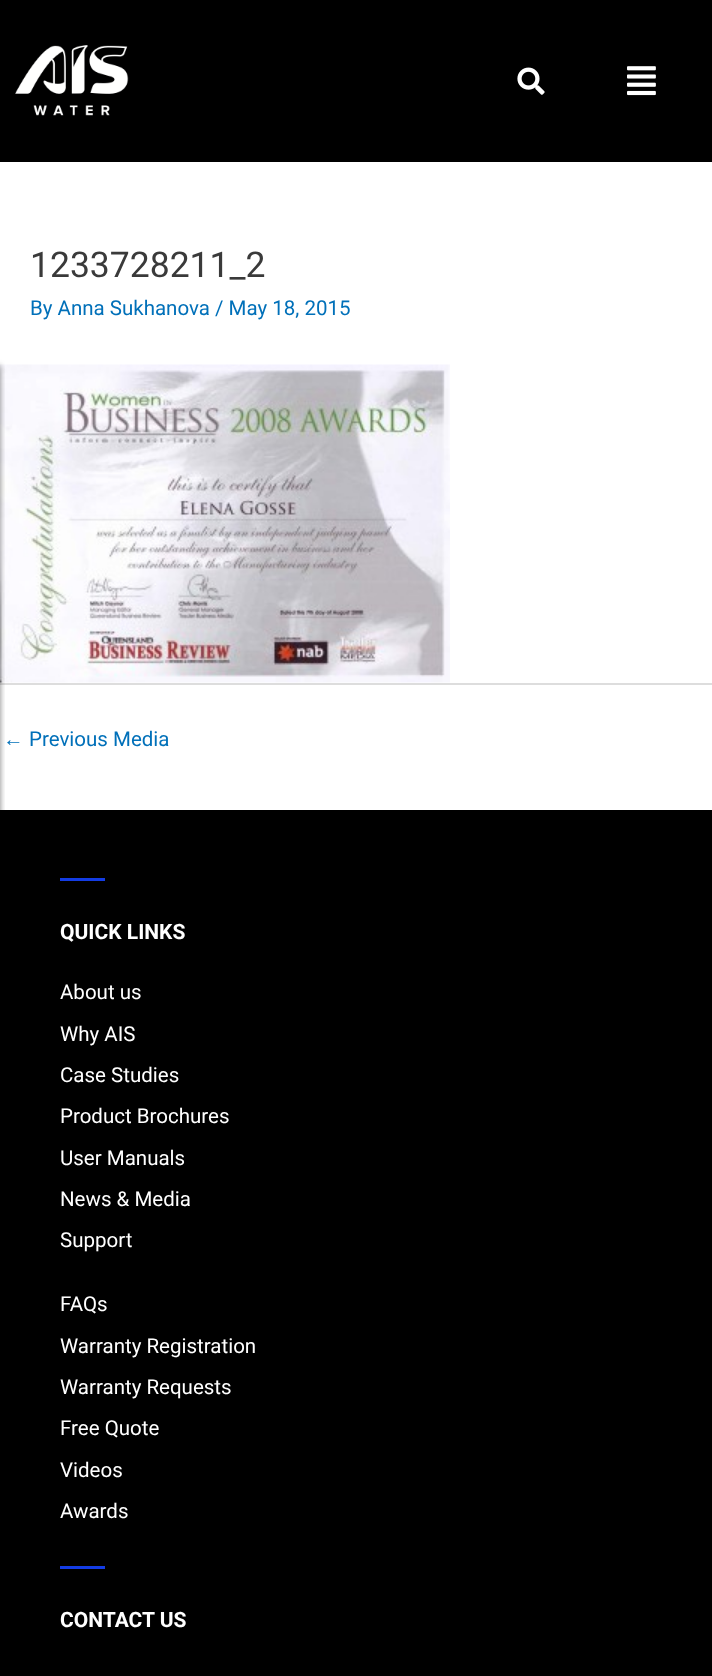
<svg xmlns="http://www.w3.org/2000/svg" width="712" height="1676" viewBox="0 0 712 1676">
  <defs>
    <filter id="blur1" x="-50%" y="-200%" width="200%" height="500%"><feGaussianBlur stdDeviation="3"/></filter>
  </defs>
  <rect width="100%" height="100%" fill="#ffffff"/>
  <image x="0" y="364" width="450" height="319" href="img4.png"/>
  <rect x="0" y="683" width="712" height="2" fill="#dddddd"/>
  <rect x="0" y="810" width="712" height="866" fill="#000000"/>
  <rect x="-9" y="366" width="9" height="557" fill="#000000" fill-opacity="0.5" filter="url(#blur1)"/>
  <rect x="0" y="0" width="712" height="162" fill="#000000"/>
  <image x="15" y="45" width="114" height="71" href="img1.png"/>
  <image x="517" y="67" width="28" height="28" href="img2.png"/>
  <image x="627" y="66" width="29" height="30" href="img3.png"/>
  <text x="30" y="277" font-family="Roboto" font-size="35.5" fill="#3a3a3a">1233728211_2</text>
  <text x="30" y="315" font-family="Roboto" font-size="20.5" fill="#0170b9">By Anna Sukhanova / May 18, 2015</text>
  <text x="3" y="746" font-family="Liberation Sans" font-size="20.5" fill="#0170b9">←</text>
  <text x="29" y="746" font-family="Roboto" font-size="20.5" fill="#0170b9">Previous Media</text>
  <rect x="60" y="878" width="45" height="3" fill="#133ce4"/>
  <text x="60" y="939" font-family="Roboto" font-size="21" font-weight="bold" fill="#ffffff">QUICK LINKS</text>
  <text x="60" y="999" font-family="Roboto" font-size="20.5" fill="#ffffff">About us</text>
  <text x="60" y="1041" font-family="Roboto" font-size="20.5" fill="#ffffff">Why AIS</text>
  <text x="60" y="1082" font-family="Roboto" font-size="20.5" fill="#ffffff">Case Studies</text>
  <text x="60" y="1123" font-family="Roboto" font-size="20.5" fill="#ffffff">Product Brochures</text>
  <text x="60" y="1165" font-family="Roboto" font-size="20.5" fill="#ffffff">User Manuals</text>
  <text x="60" y="1206" font-family="Roboto" font-size="20.5" fill="#ffffff">News &amp; Media</text>
  <text x="60" y="1247" font-family="Roboto" font-size="20.5" fill="#ffffff">Support</text>
  <text x="60" y="1311" font-family="Roboto" font-size="20.5" fill="#ffffff">FAQs</text>
  <text x="60" y="1353" font-family="Roboto" font-size="20.5" fill="#ffffff">Warranty Registration</text>
  <text x="60" y="1394" font-family="Roboto" font-size="20.5" fill="#ffffff">Warranty Requests</text>
  <text x="60" y="1435" font-family="Roboto" font-size="20.5" fill="#ffffff">Free Quote</text>
  <text x="60" y="1477" font-family="Roboto" font-size="20.5" fill="#ffffff">Videos</text>
  <text x="60" y="1518" font-family="Roboto" font-size="20.5" fill="#ffffff">Awards</text>
  <rect x="60" y="1566" width="45" height="3" fill="#133ce4"/>
  <text x="60" y="1627" font-family="Roboto" font-size="21" font-weight="bold" fill="#ffffff">CONTACT US</text>
</svg>
